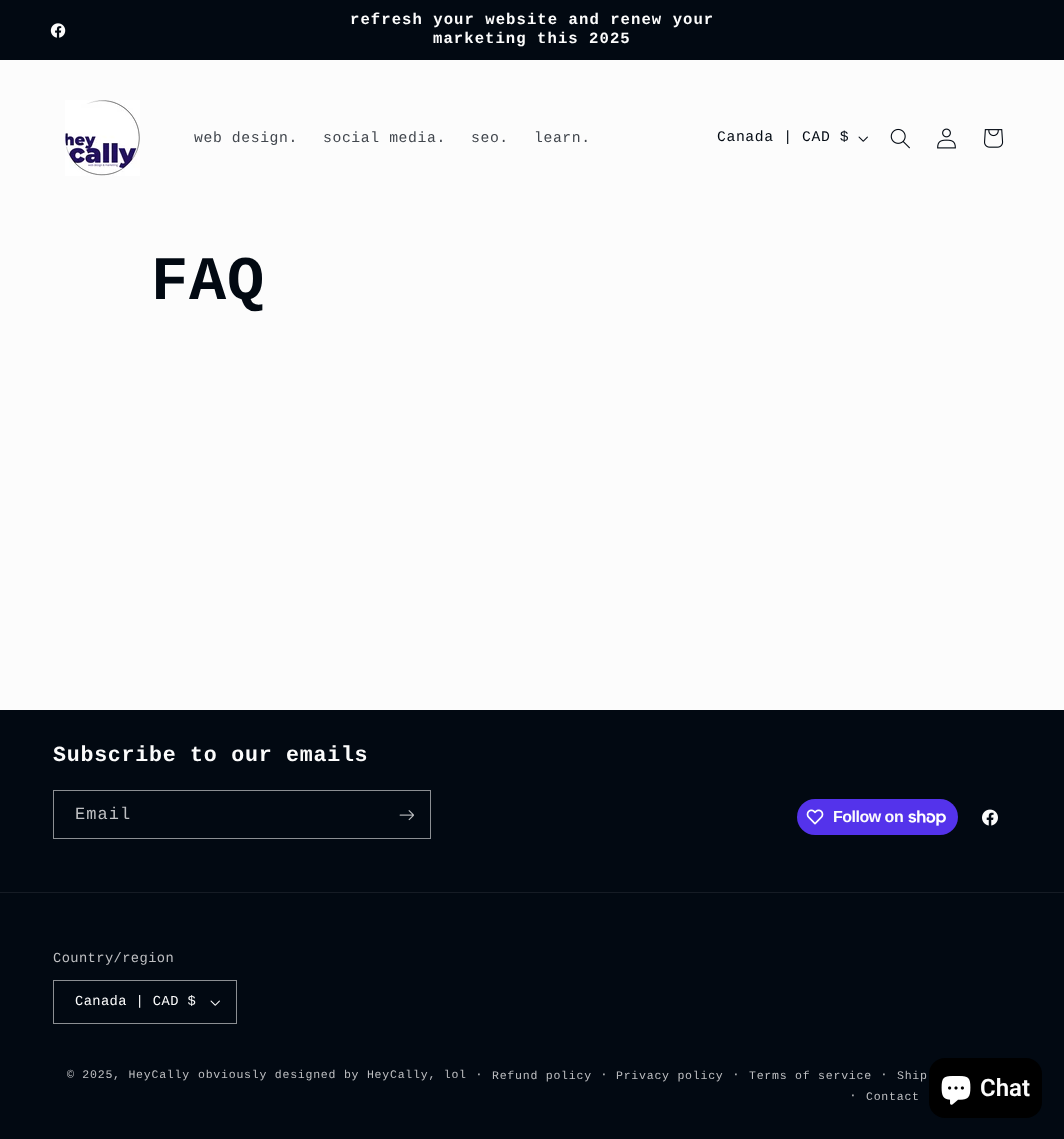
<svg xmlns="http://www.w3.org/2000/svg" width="1064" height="1139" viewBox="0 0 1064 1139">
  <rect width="100%" height="100%" fill="#fcfcfc"/>
  <rect x="0" y="0" width="1064" height="60" fill="#020912"/>
  <image x="50" y="23" width="16" height="15" href="img1.png"/>
  <text x="350" y="24" font-family="Liberation Mono" font-size="15.6" font-weight="bold" letter-spacing="1.05" fill="#fcfcfc">refresh your website and renew your</text>
  <text x="433" y="43" font-family="Liberation Mono" font-size="15.6" font-weight="bold" letter-spacing="1.05" fill="#fcfcfc">marketing this 2025</text>
  <image x="65" y="100" width="75" height="76" href="img2.png"/>
  <text x="194" y="142" font-family="Liberation Mono" font-size="14.75" letter-spacing="0.6" fill="#41464d">web design.</text>
  <text x="323" y="142" font-family="Liberation Mono" font-size="14.75" letter-spacing="0.6" fill="#41464d">social media.</text>
  <text x="471" y="142" font-family="Liberation Mono" font-size="14.75" letter-spacing="0.6" fill="#41464d">seo.</text>
  <text x="534" y="142" font-family="Liberation Mono" font-size="14.75" letter-spacing="0.6" fill="#41464d">learn.</text>
  <text x="717" y="141" font-family="Liberation Mono" font-size="14.75" letter-spacing="0.6" fill="#020912">Canada | CAD $</text>
  <image x="858" y="136" width="10" height="6" href="img3.png"/>
  <image x="890" y="128" width="20" height="21" href="img4.png"/>
  <image x="937" y="128" width="19" height="21" href="img5.png"/>
  <image x="984" y="129" width="20" height="19" href="img6.png"/>
  <text x="151" y="299" font-family="Liberation Mono" font-size="62" font-weight="bold" letter-spacing="0.75" fill="#020912">FAQ</text>
  <rect x="0" y="710" width="1064" height="429" fill="#020912"/>
  <text x="53" y="761" font-family="Liberation Mono" font-size="21.6" font-weight="bold" letter-spacing="0.75" fill="#fcfcfc">Subscribe to our emails</text>
  <rect x="53.5" y="790.5" width="377" height="48" fill="none" stroke="#8c8f93"/>
  <text x="75" y="819" font-family="Liberation Mono" font-size="17" letter-spacing="1.05" fill="#bebfc2">Email</text>
  <image x="399" y="810" width="15" height="11" href="img7.png"/>
  <rect x="797" y="799" width="161" height="36" rx="18" fill="#5433eb"/>
  <image x="806" y="809" width="18" height="16" href="img8.png"/>
  <text x="833" y="822" font-family="Liberation Sans" font-size="16" font-weight="bold" letter-spacing="-0.5" fill="#fcfcfc">Follow on</text>
  <image x="908" y="810" width="38" height="16" href="img9.png"/>
  <image x="982" y="809" width="16" height="17" href="img10.png"/>
  <rect x="0" y="892" width="1064" height="1" fill="#161c25"/>
  <text x="53" y="962" font-family="Liberation Mono" font-size="13.75" letter-spacing="0.4" fill="#bebfc2">Country/region</text>
  <image x="210" y="1000" width="10" height="6" href="img11.png"/>
  <rect x="53.5" y="980.5" width="183" height="43" fill="none" stroke="#8c8f93"/>
  <text x="75" y="1005" font-family="Liberation Mono" font-size="13.75" letter-spacing="0.4" fill="#fcfcfc">Canada | CAD $</text>
  <text x="67" y="1078" font-family="Liberation Mono" font-size="11.55" letter-spacing="0.75" fill="#bebfc2">© 2025, HeyCally</text>
  <text x="198" y="1078" font-family="Liberation Mono" font-size="11.55" letter-spacing="0.75" fill="#bebfc2">obviously designed by HeyCally, lol</text>
  <text x="475" y="1078" font-family="Liberation Mono" font-size="13" letter-spacing="0.75" fill="#bebfc2">·</text>
  <text x="492" y="1079" font-family="Liberation Mono" font-size="11.55" letter-spacing="0.75" fill="#bebfc2">Refund policy</text>
  <text x="600" y="1078" font-family="Liberation Mono" font-size="13" letter-spacing="0.75" fill="#bebfc2">·</text>
  <text x="616" y="1079" font-family="Liberation Mono" font-size="11.55" letter-spacing="0.75" fill="#bebfc2">Privacy policy</text>
  <text x="732" y="1078" font-family="Liberation Mono" font-size="13" letter-spacing="0.75" fill="#bebfc2">·</text>
  <text x="749" y="1079" font-family="Liberation Mono" font-size="11.55" letter-spacing="0.75" fill="#bebfc2">Terms of service</text>
  <text x="880" y="1078" font-family="Liberation Mono" font-size="13" letter-spacing="0.75" fill="#bebfc2">·</text>
  <text x="897" y="1079" font-family="Liberation Mono" font-size="11.55" letter-spacing="0.75" fill="#bebfc2">Ship</text>
  <text x="849" y="1099" font-family="Liberation Mono" font-size="13" letter-spacing="0.75" fill="#bebfc2">·</text>
  <text x="866" y="1100" font-family="Liberation Mono" font-size="11.55" letter-spacing="0.75" fill="#bebfc2">Contact</text>
  <rect x="929" y="1058" width="113" height="60" rx="16" fill="#000000"/>
  <image x="941" y="1076" width="30" height="29" href="img12.png"/>
  <text x="980" y="1096" font-family="Roboto" font-size="24" font-weight="600" fill="#fcfcfc">Chat</text>
</svg>
